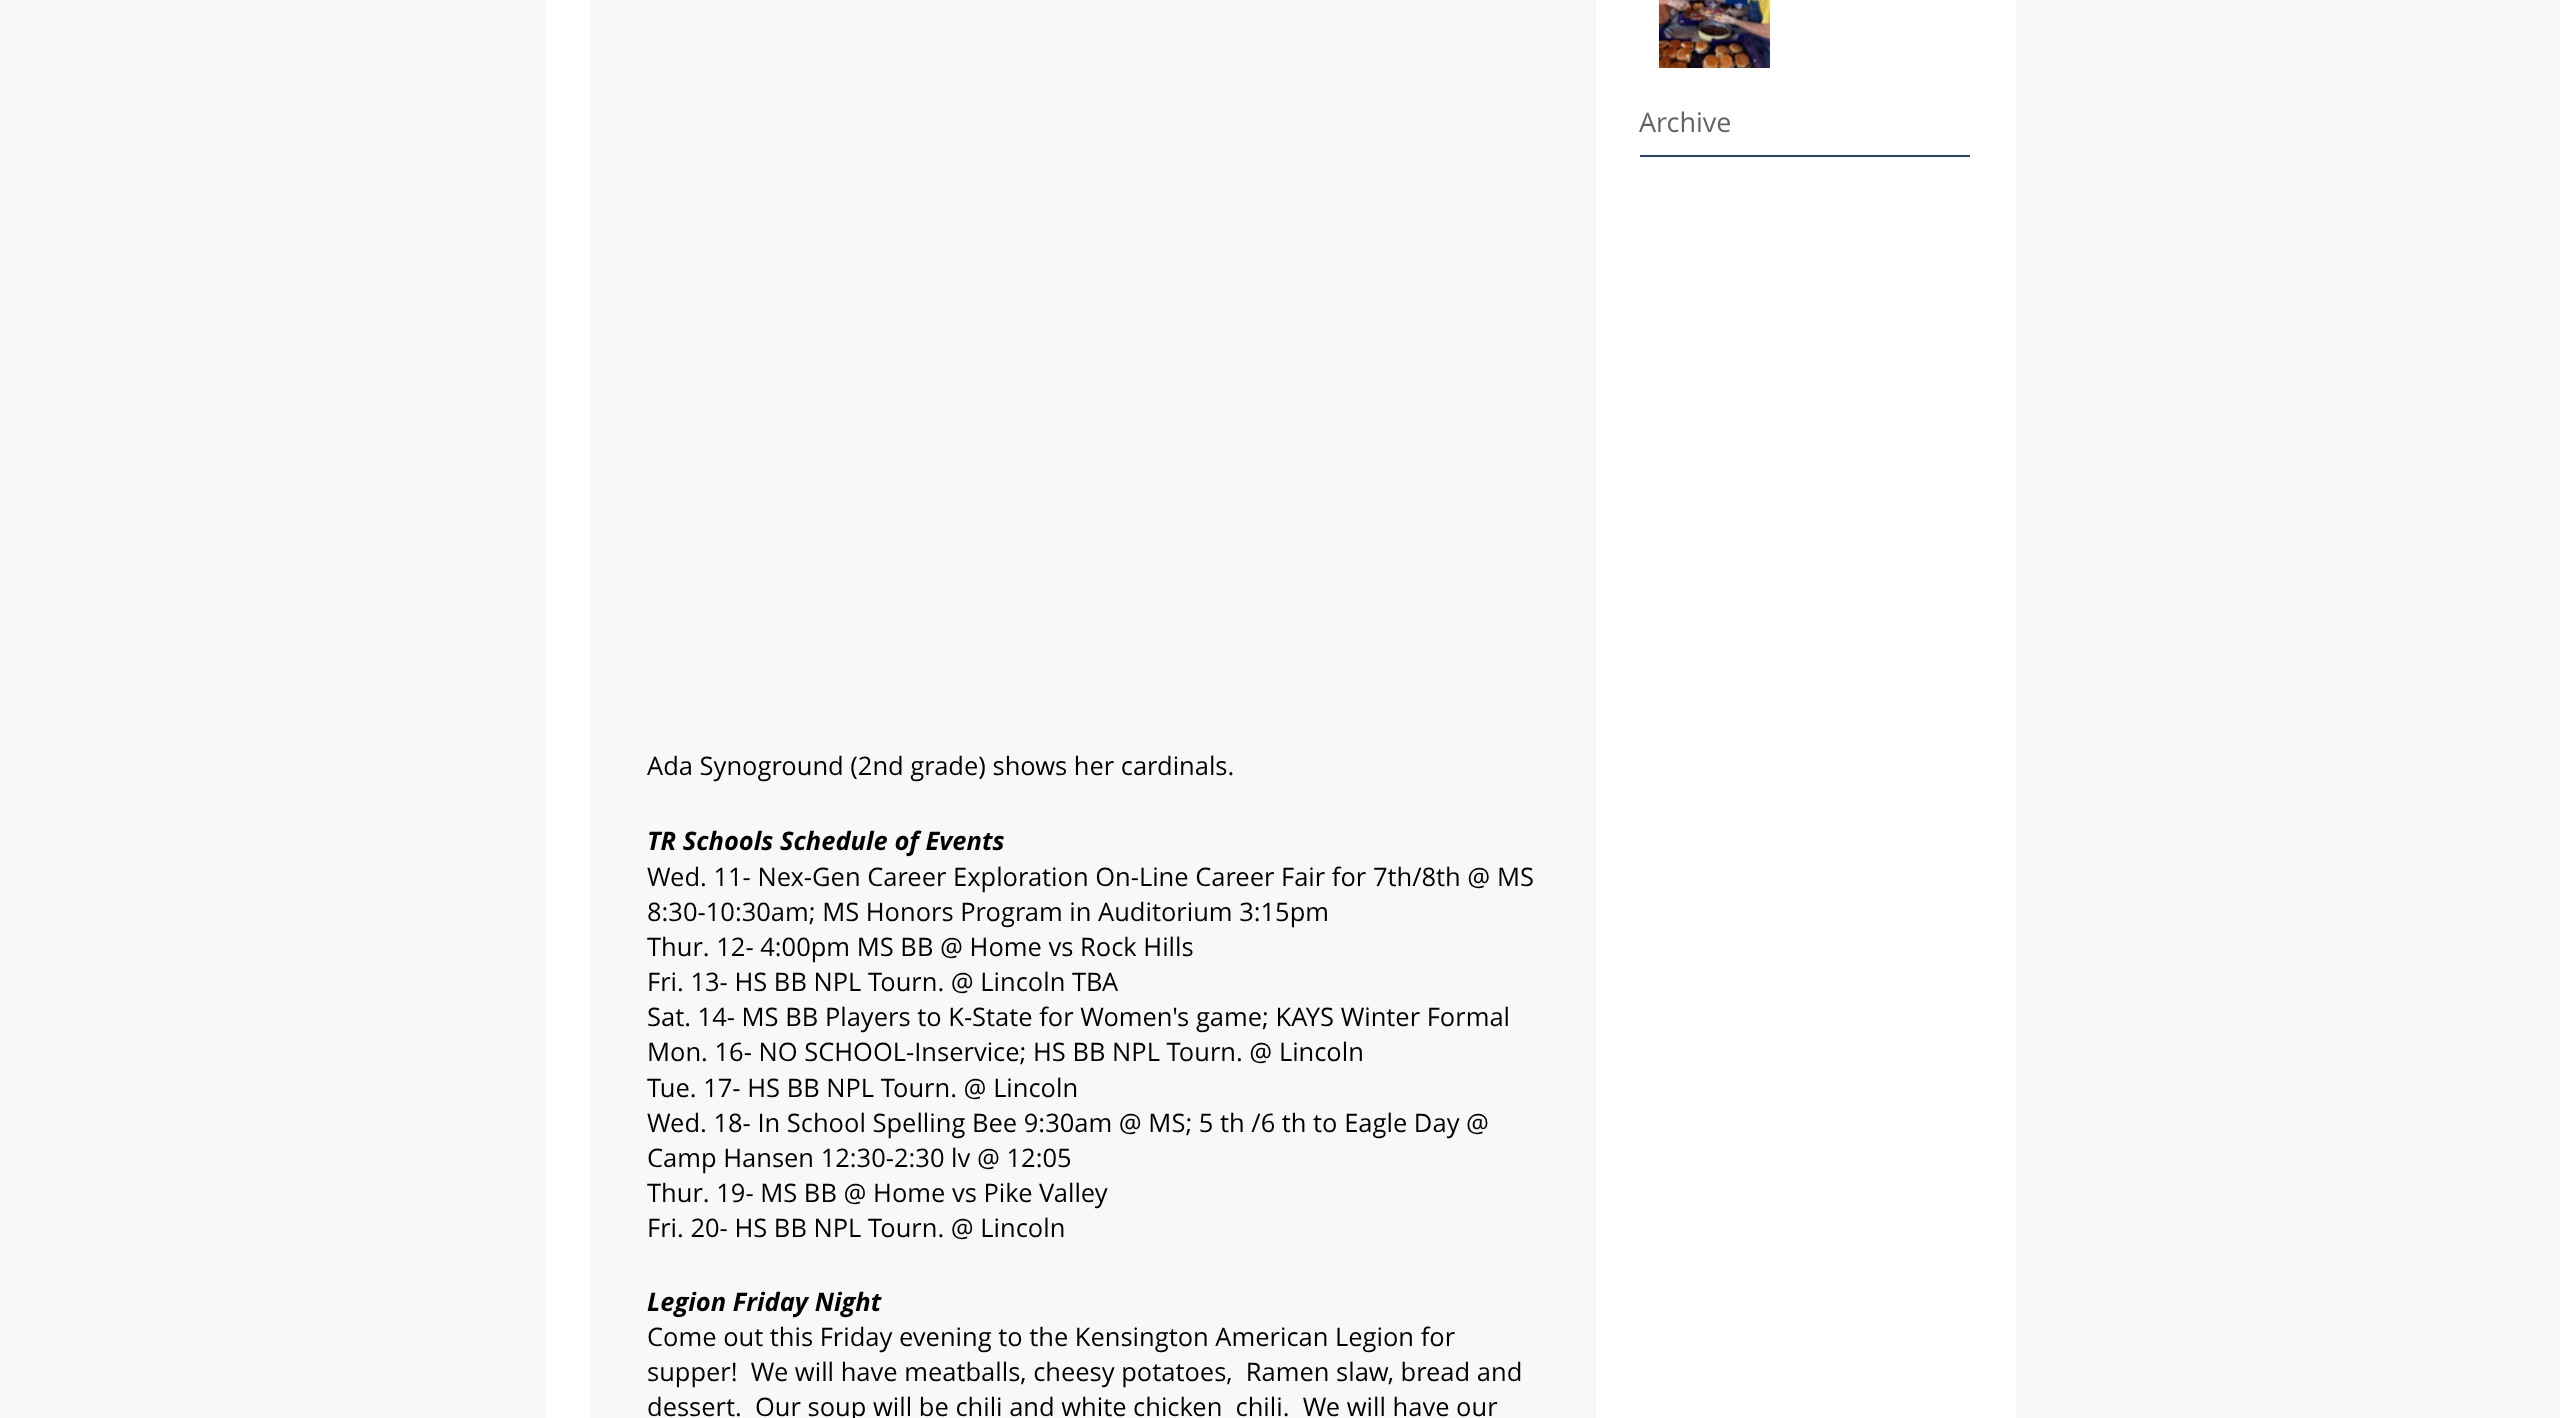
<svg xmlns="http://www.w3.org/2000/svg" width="2560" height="1418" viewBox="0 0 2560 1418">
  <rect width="100%" height="100%" fill="#f8f8f8"/>
  <rect x="546" y="0" width="1470" height="1418" fill="#ffffff"/>
  <image x="1659" y="0" width="111" height="68" href="img1.png"/>
  <text x="1639" y="132" font-family="Open Sans" font-size="27" fill="#636363">Archive</text>
  <rect x="1640" y="155" width="330" height="2" fill="#1d4379"/>
  <rect x="591" y="0" width="1005" height="1418" fill="#f8f8f8"/>
  <text x="647" y="775" font-family="Open Sans" font-size="25.5" fill="#000000">Ada Synoground (2nd grade) shows her cardinals.</text>
  <text x="647" y="850" font-family="Open Sans" font-size="25.5" font-weight="bold" font-style="italic" fill="#000000">TR Schools Schedule of Events</text>
  <text x="647" y="886" font-family="Open Sans" font-size="25.5" fill="#000000">Wed. 11- Nex-Gen Career Exploration On-Line Career Fair for 7th/8th @ MS</text>
  <text x="647" y="921" font-family="Open Sans" font-size="25.5" fill="#000000">8:30-10:30am; MS Honors Program in Auditorium 3:15pm</text>
  <text x="647" y="956" font-family="Open Sans" font-size="25.5" fill="#000000">Thur. 12- 4:00pm MS BB @ Home vs Rock Hills</text>
  <text x="647" y="991" font-family="Open Sans" font-size="25.5" fill="#000000">Fri. 13- HS BB NPL Tourn. @ Lincoln TBA</text>
  <text x="647" y="1026" font-family="Open Sans" font-size="25.5" fill="#000000">Sat. 14- MS BB Players to K-State for Women's game; KAYS Winter Formal</text>
  <text x="647" y="1061" font-family="Open Sans" font-size="25.5" fill="#000000">Mon. 16- NO SCHOOL-Inservice; HS BB NPL Tourn. @ Lincoln</text>
  <text x="647" y="1097" font-family="Open Sans" font-size="25.5" fill="#000000">Tue. 17- HS BB NPL Tourn. @ Lincoln</text>
  <text x="647" y="1132" font-family="Open Sans" font-size="25.5" fill="#000000">Wed. 18- In School Spelling Bee 9:30am @ MS; 5 th /6 th to Eagle Day @</text>
  <text x="647" y="1167" font-family="Open Sans" font-size="25.5" fill="#000000">Camp Hansen 12:30-2:30 lv @ 12:05</text>
  <text x="647" y="1202" font-family="Open Sans" font-size="25.5" fill="#000000">Thur. 19- MS BB @ Home vs Pike Valley</text>
  <text x="647" y="1237" font-family="Open Sans" font-size="25.5" fill="#000000">Fri. 20- HS BB NPL Tourn. @ Lincoln</text>
  <text x="647" y="1311" font-family="Open Sans" font-size="25.5" font-weight="bold" font-style="italic" fill="#000000">Legion Friday Night</text>
  <text x="647" y="1346" font-family="Open Sans" font-size="25.5" fill="#000000">Come out this Friday evening to the Kensington American Legion for</text>
  <text x="647" y="1381" font-family="Open Sans" font-size="25.5" fill="#000000" xml:space="preserve">supper!  We will have meatballs, cheesy potatoes,  Ramen slaw, bread and</text>
  <text x="647" y="1416" font-family="Open Sans" font-size="25.5" fill="#000000" xml:space="preserve">dessert.  Our soup will be chili and white chicken  chili.  We will have our</text>
</svg>
